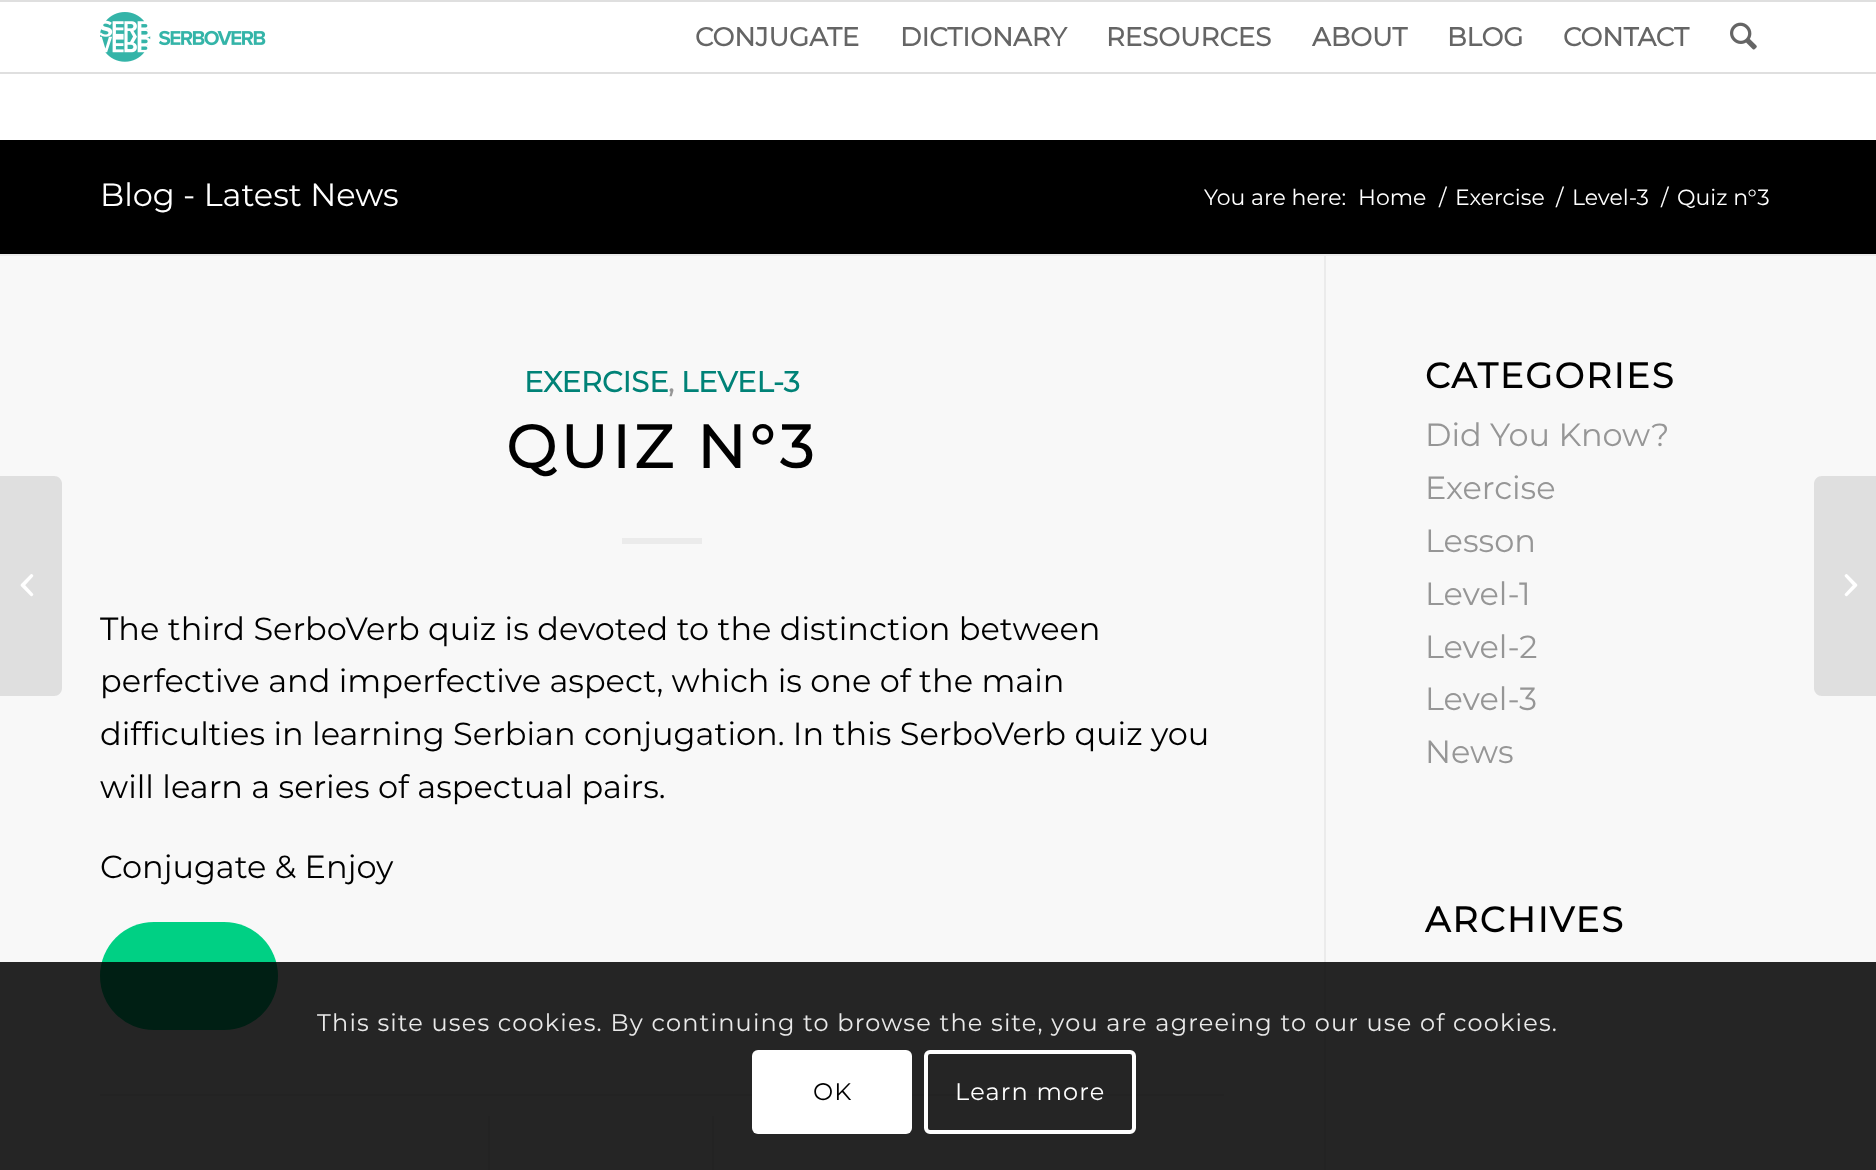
<svg xmlns="http://www.w3.org/2000/svg" width="1876" height="1170" viewBox="0 0 1876 1170">
  <rect width="100%" height="100%" fill="#ffffff"/>
  <rect x="0" y="0" width="1876" height="2" fill="#dfdfdf"/>
  <rect x="0" y="72" width="1876" height="2" fill="#dfdfdf"/>
  <image x="100" y="12" width="166" height="50" href="img1.png"/>
  <text x="695" y="46" font-family="Montserrat" font-size="26" font-weight="bold" fill="#656565">CONJUGATE</text>
  <text x="900" y="46" font-family="Montserrat" font-size="26" font-weight="bold" fill="#656565">DICTIONARY</text>
  <text x="1106" y="46" font-family="Montserrat" font-size="26" font-weight="bold" fill="#656565">RESOURCES</text>
  <text x="1312" y="46" font-family="Montserrat" font-size="26" font-weight="bold" fill="#656565">ABOUT</text>
  <text x="1447" y="46" font-family="Montserrat" font-size="26" font-weight="bold" fill="#656565">BLOG</text>
  <text x="1563" y="46" font-family="Montserrat" font-size="26" font-weight="bold" fill="#656565">CONTACT</text>
  <image x="1730" y="22" width="27" height="28" href="img2.png"/>
  <rect x="0" y="256" width="1876" height="914" fill="#f8f8f8"/>
  <path d="M0 476H54C58.5 476 62 479.5 62 484V688C62 692.5 58.5 696 54 696H0Z" fill="#dfdfdf"/>
  <image x="20" y="574" width="14" height="23" href="img3.png"/>
  <rect x="0" y="140" width="1876" height="114" fill="#000000"/>
  <text x="100" y="206" font-family="Montserrat" font-size="32" font-weight="100" fill="#ffffff">Blog - Latest News</text>
  <text x="1204" y="205" font-family="Montserrat" font-size="22" font-weight="100" fill="#ffffff">You are here:</text>
  <text x="1358" y="205" font-family="Montserrat" font-size="22" font-weight="100" fill="#ffffff">Home</text>
  <text x="1439" y="205" font-family="Montserrat" font-size="22" font-weight="100" fill="#ffffff">/</text>
  <text x="1455" y="205" font-family="Montserrat" font-size="22" font-weight="100" fill="#ffffff">Exercise</text>
  <text x="1556" y="205" font-family="Montserrat" font-size="22" font-weight="100" fill="#ffffff">/</text>
  <text x="1572" y="205" font-family="Montserrat" font-size="22" font-weight="100" fill="#ffffff">Level-3</text>
  <text x="1661" y="205" font-family="Montserrat" font-size="22" font-weight="100" fill="#ffffff">/</text>
  <text x="1677" y="205" font-family="Montserrat" font-size="22" font-weight="100" fill="#ffffff">Quiz n°3</text>
  <rect x="0" y="254" width="1876" height="2" fill="#ebebeb"/>
  <rect x="1324" y="256" width="2" height="914" fill="#ebebeb"/>
  <text x="524" y="392" font-family="Montserrat" font-size="29" font-weight="bold" fill="#008277">EXERCISE</text>
  <text x="668" y="392" font-family="Montserrat" font-size="29" font-weight="bold" fill="#969696">,</text>
  <text x="681" y="392" font-family="Montserrat" font-size="29" font-weight="bold" fill="#008277">LEVEL-3</text>
  <text x="506" y="468" font-family="Montserrat" font-size="60" font-weight="bold" letter-spacing="4" fill="#000000">QUIZ N°3</text>
  <rect x="622" y="538" width="80" height="6" fill="#ebebeb"/>
  <text x="100" y="640" font-family="Montserrat" font-size="32" font-weight="100" fill="#000000">The third SerboVerb quiz is devoted to the distinction between</text>
  <text x="100" y="692" font-family="Montserrat" font-size="32" font-weight="100" fill="#000000">perfective and imperfective aspect, which is one of the main</text>
  <text x="100" y="745" font-family="Montserrat" font-size="32" font-weight="100" fill="#000000">difficulties in learning Serbian conjugation. In this SerboVerb quiz you</text>
  <text x="100" y="798" font-family="Montserrat" font-size="32" font-weight="100" fill="#000000">will learn a series of aspectual pairs.</text>
  <text x="100" y="878" font-family="Montserrat" font-size="32" font-weight="100" fill="#000000">Conjugate &amp; Enjoy</text>
  <rect x="100" y="922" width="178" height="108" rx="54" fill="#00d084"/>
  <rect x="100" y="1094" width="1124" height="2" fill="#ebebeb"/>
  <rect x="488" y="1116" width="2" height="54" fill="#ebebeb"/>
  <rect x="712" y="1116" width="2" height="54" fill="#ebebeb"/>
  <text x="1425" y="388" font-family="Montserrat" font-size="35.25" font-weight="bold" letter-spacing="2" fill="#000000">CATEGORIES</text>
  <text x="1425" y="446" font-family="Montserrat" font-size="32" font-weight="100" fill="#969696">Did You Know?</text>
  <text x="1425" y="499" font-family="Montserrat" font-size="32" font-weight="100" fill="#969696">Exercise</text>
  <text x="1425" y="552" font-family="Montserrat" font-size="32" font-weight="100" fill="#969696">Lesson</text>
  <text x="1425" y="605" font-family="Montserrat" font-size="32" font-weight="100" fill="#969696">Level-1</text>
  <text x="1425" y="658" font-family="Montserrat" font-size="32" font-weight="100" fill="#969696">Level-2</text>
  <text x="1425" y="710" font-family="Montserrat" font-size="32" font-weight="100" fill="#969696">Level-3</text>
  <text x="1425" y="763" font-family="Montserrat" font-size="32" font-weight="100" fill="#969696">News</text>
  <text x="1425" y="932" font-family="Montserrat" font-size="35.25" font-weight="bold" letter-spacing="2" fill="#000000">ARCHIVES</text>
  <path d="M1822 476H1876V696H1822C1817.5 696 1814 692.5 1814 688V484C1814 479.5 1817.5 476 1822 476Z" fill="#dfdfdf"/>
  <image x="1844" y="574" width="14" height="23" href="img4.png"/>
  <rect x="0" y="962" width="1876" height="208" fill="#000000" fill-opacity="0.85"/>
  <text x="317" y="1031" font-family="Montserrat" font-size="24" font-weight="100" letter-spacing="1.2" fill="#e9e9e9">This site uses cookies. By continuing to browse the site, you are agreeing to our use of cookies.</text>
  <rect x="752" y="1050" width="160" height="84" rx="6" fill="#ffffff"/>
  <text x="813" y="1100" font-family="Montserrat" font-size="24" font-weight="100" letter-spacing="1.2" fill="#000000">OK</text>
  <rect x="926" y="1052" width="208" height="80" rx="4" fill="none" stroke="#ffffff" stroke-width="4"/>
  <text x="955" y="1100" font-family="Montserrat" font-size="24" font-weight="100" letter-spacing="1.2" fill="#ffffff">Learn more</text>
</svg>
